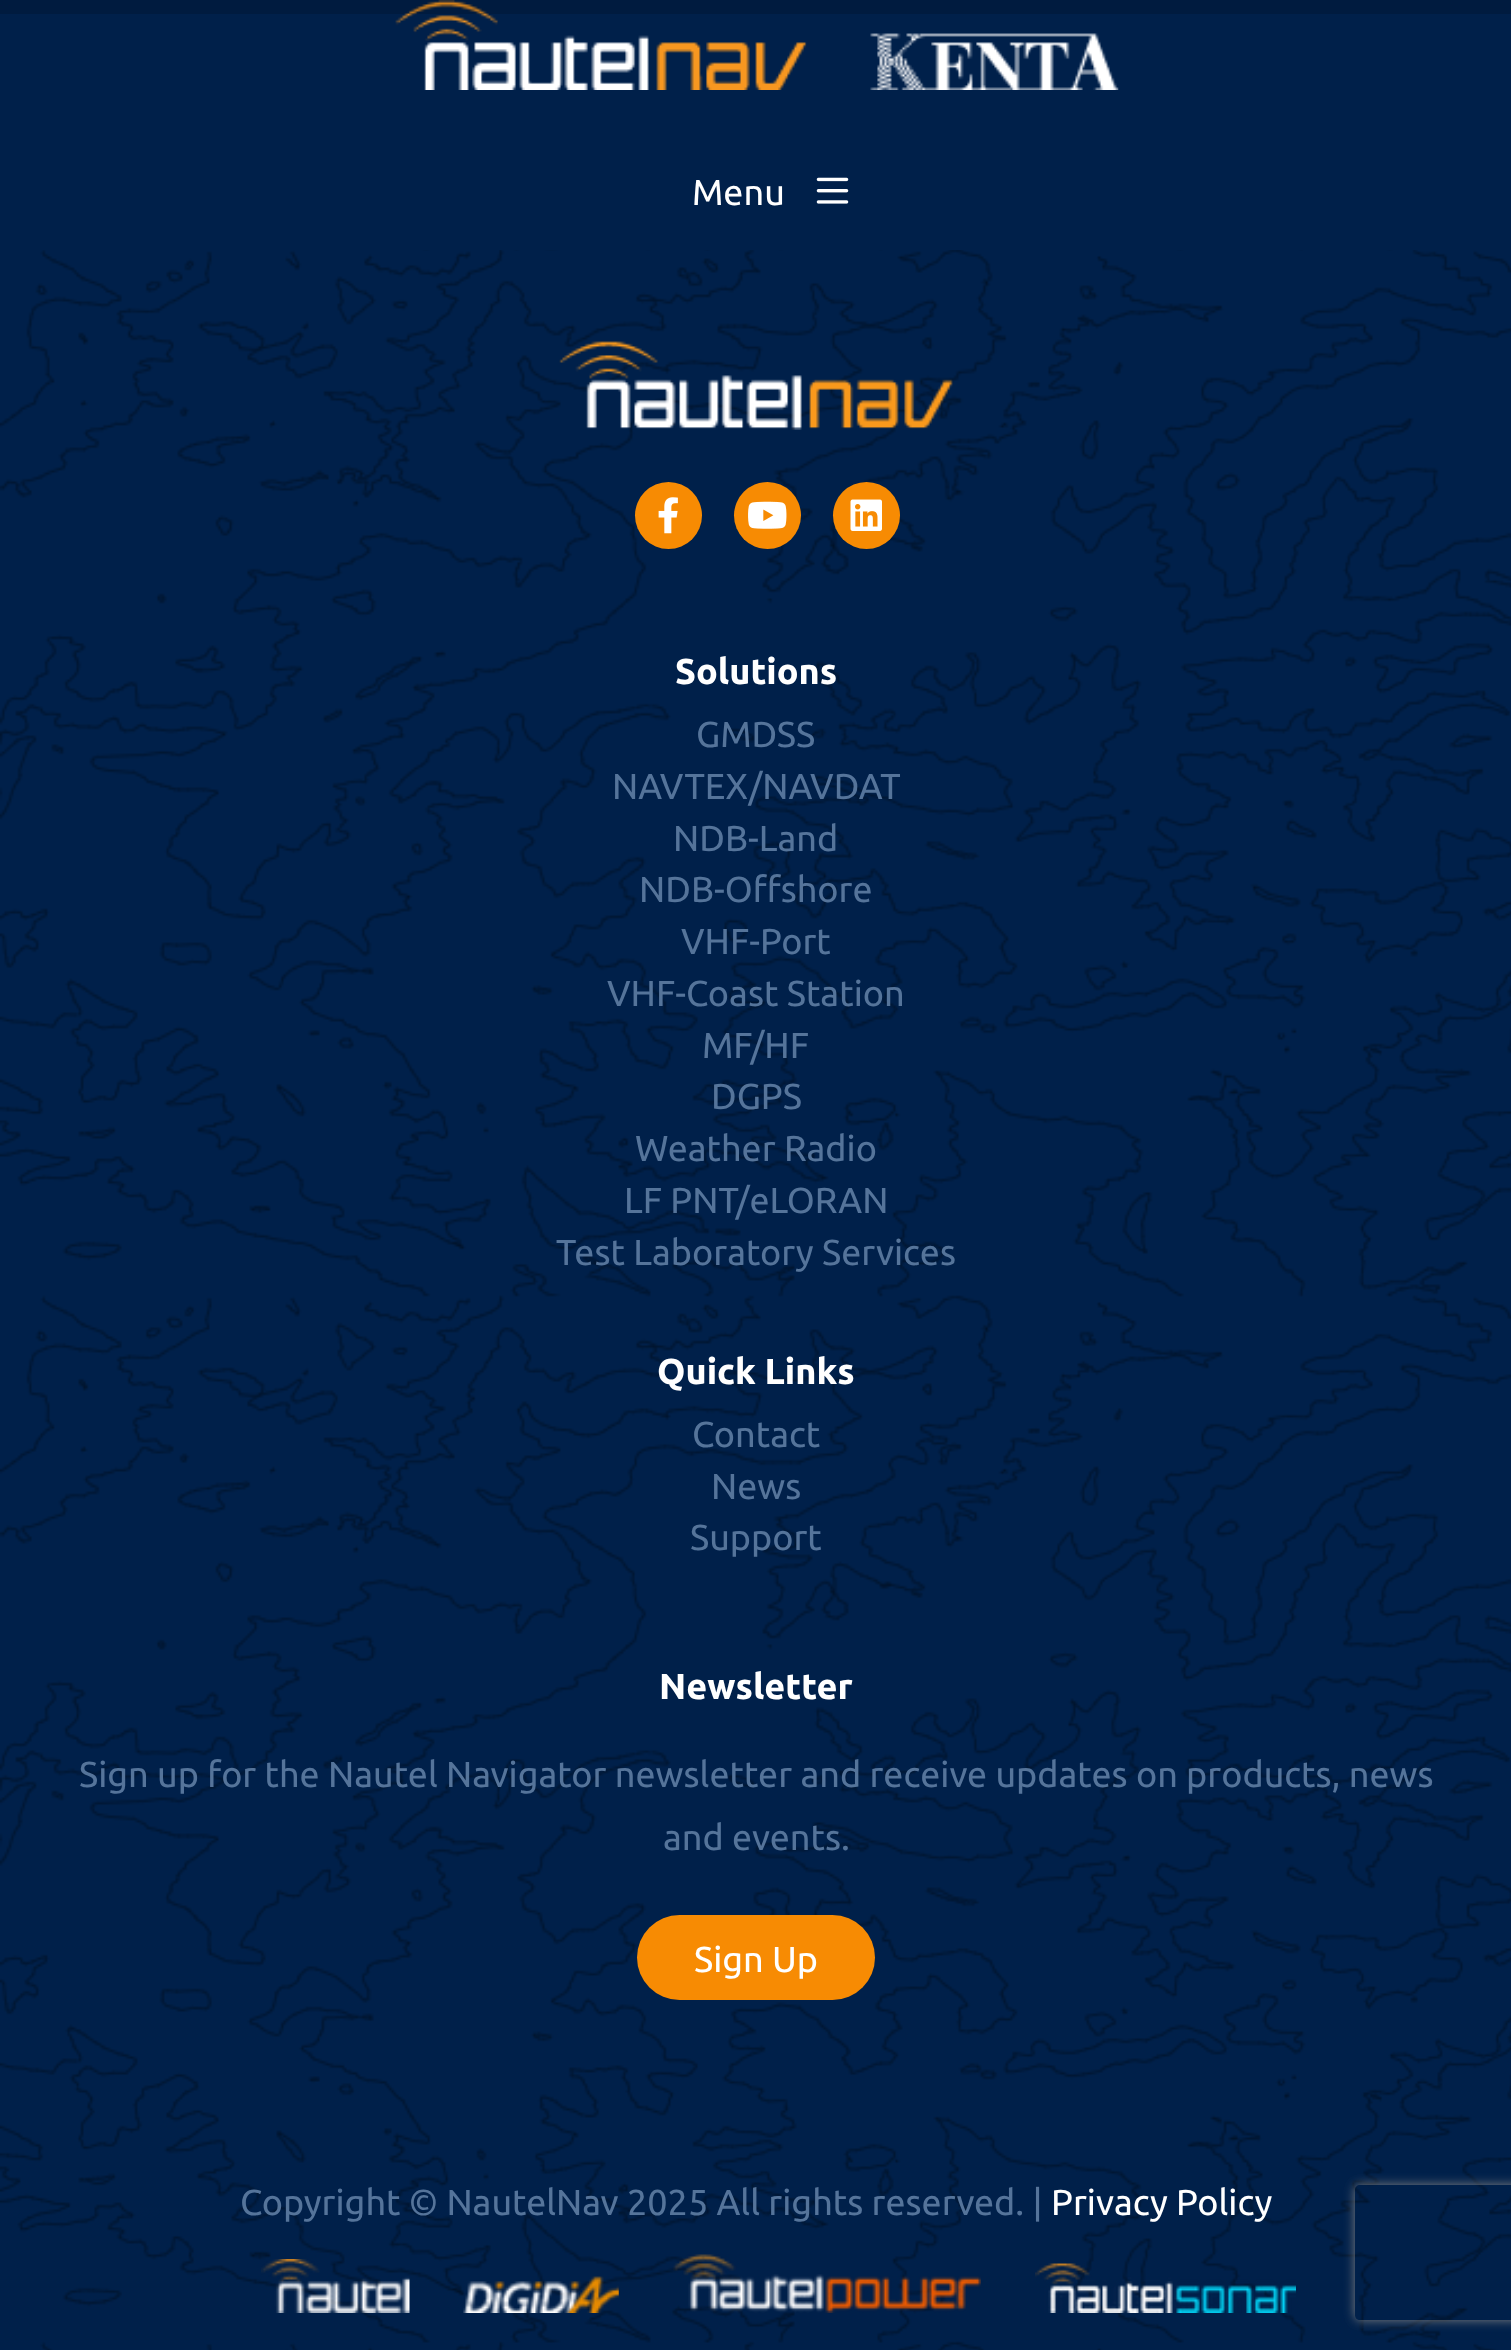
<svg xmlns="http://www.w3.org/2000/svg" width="1511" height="2350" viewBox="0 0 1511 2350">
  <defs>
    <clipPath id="clip1"><path d="M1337 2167H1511V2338H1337ZM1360 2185H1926C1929 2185 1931 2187 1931 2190V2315C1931 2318 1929 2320 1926 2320H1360C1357 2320 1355 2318 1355 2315V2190C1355 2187 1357 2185 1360 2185Z" clip-rule="evenodd"/></clipPath>
    <filter id="blur1" x="-50%" y="-200%" width="200%" height="500%"><feGaussianBlur stdDeviation="5.5"/></filter>
  </defs>
  <rect width="100%" height="100%" fill="#ffffff"/>
  <rect x="0" y="0" width="1511" height="250" fill="#00204a"/>
  <image x="395" y="0" width="724" height="90" href="img1.png"/>
  <path d="M-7-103V14H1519V-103H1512V0H0V-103Z" fill="#000000" fill-opacity="0.15"/>
  <text x="692" y="205" font-family="Ubuntu" font-size="36" fill="#ffffff">Menu</text>
  <image x="816" y="177" width="33" height="27" href="img2.png"/>
  <image x="0" y="250" width="1511" height="2100" href="img3.png"/>
  <image x="559" y="341" width="394" height="89" href="img4.png"/>
  <circle cx="668.5" cy="515.5" r="33.5" fill="#f78b03"/>
  <image x="658" y="497" width="20" height="37" href="img5.png"/>
  <circle cx="767.5" cy="515.5" r="33.5" fill="#f78b03"/>
  <image x="748" y="501" width="39" height="28" href="img6.png"/>
  <circle cx="866.5" cy="515.5" r="33.5" fill="#f78b03"/>
  <image x="850" y="499" width="32" height="32" href="img7.png"/>
  <text x="675" y="684" font-family="Ubuntu" font-size="36" font-weight="bold" fill="#ffffff">Solutions</text>
  <text x="696" y="747" font-family="Ubuntu" font-size="36" fill="#55749a">GMDSS</text>
  <text x="612" y="799" font-family="Ubuntu" font-size="36" fill="#55749a">NAVTEX/NAVDAT</text>
  <text x="673" y="851" font-family="Ubuntu" font-size="36" fill="#55749a">NDB-Land</text>
  <text x="639" y="902" font-family="Ubuntu" font-size="36" fill="#55749a">NDB-Offshore</text>
  <text x="681" y="954" font-family="Ubuntu" font-size="36" fill="#55749a">VHF-Port</text>
  <text x="607" y="1006" font-family="Ubuntu" font-size="36" fill="#55749a">VHF-Coast Station</text>
  <text x="702" y="1058" font-family="Ubuntu" font-size="36" fill="#55749a">MF/HF</text>
  <text x="711" y="1109" font-family="Ubuntu" font-size="36" fill="#55749a">DGPS</text>
  <text x="635" y="1161" font-family="Ubuntu" font-size="36" fill="#55749a">Weather Radio</text>
  <text x="624" y="1213" font-family="Ubuntu" font-size="36" fill="#55749a">LF PNT/eLORAN</text>
  <text x="556" y="1265" font-family="Ubuntu" font-size="36" fill="#55749a">Test Laboratory Services</text>
  <text x="657" y="1384" font-family="Ubuntu" font-size="36" font-weight="bold" fill="#ffffff">Quick Links</text>
  <text x="692" y="1447" font-family="Ubuntu" font-size="36" fill="#55749a">Contact</text>
  <text x="711" y="1499" font-family="Ubuntu" font-size="36" fill="#55749a">News</text>
  <text x="690" y="1550" font-family="Ubuntu" font-size="36" fill="#55749a">Support</text>
  <text x="659" y="1699" font-family="Ubuntu" font-size="36" font-weight="bold" fill="#ffffff">Newsletter</text>
  <text x="79" y="1787" font-family="Ubuntu" font-size="36" fill="#55749a">Sign up for the Nautel Navigator newsletter and receive updates on products, news</text>
  <text x="663" y="1850" font-family="Ubuntu" font-size="36" fill="#55749a">and events.</text>
  <rect x="637" y="1915" width="238" height="85" rx="42.5" fill="#f78b03"/>
  <text x="694" y="1972" font-family="Ubuntu" font-size="36" fill="#ffffff">Sign Up</text>
  <text x="240" y="2215" font-family="Ubuntu" font-size="36" fill="#55749a">Copyright © NautelNav 2025 All rights reserved. |</text>
  <text x="1051" y="2215" font-family="Ubuntu" font-size="36" fill="#ffffff">Privacy Policy</text>
  <image x="261" y="2259" width="149" height="54" href="img8.png"/>
  <image x="463" y="2276" width="156" height="37" href="img9.png"/>
  <image x="673" y="2254" width="308" height="59" href="img10.png"/>
  <image x="1035" y="2263" width="261" height="50" href="img11.png"/>
  <g clip-path="url(#clip1)">
    <rect x="1355" y="2185" width="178" height="135" rx="5" fill="#808080" filter="url(#blur1)"/>
  </g>
</svg>
